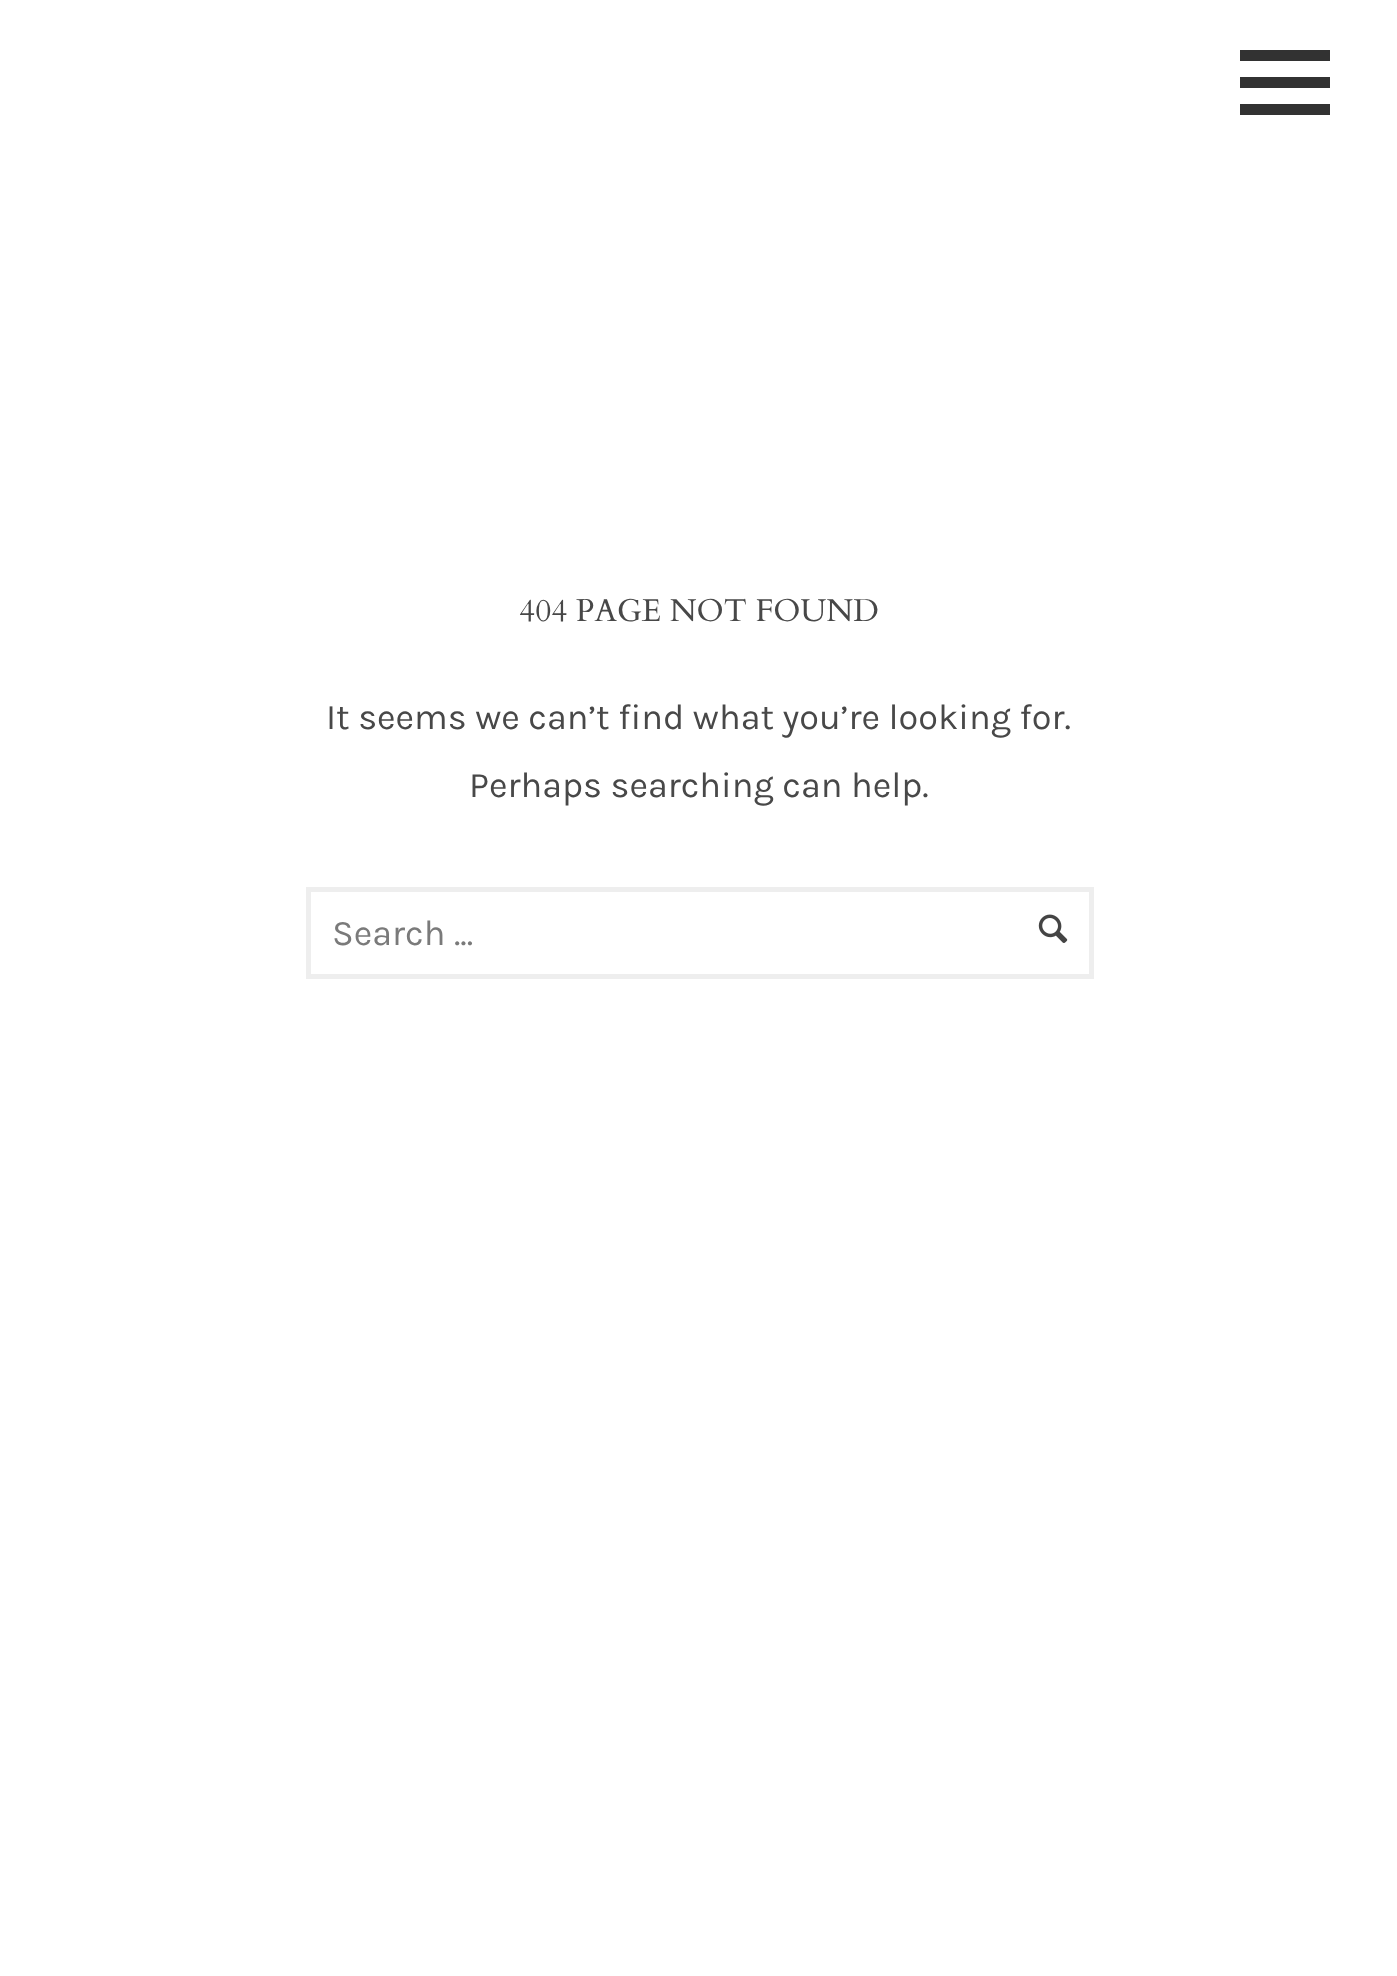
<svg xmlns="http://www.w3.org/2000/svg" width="1397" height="1976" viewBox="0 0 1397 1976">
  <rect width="100%" height="100%" fill="#ffffff"/>
  <rect x="1240" y="50" width="90" height="11" fill="#323232"/>
  <rect x="1240" y="77" width="90" height="11" fill="#323232"/>
  <rect x="1240" y="104" width="90" height="11" fill="#323232"/>
  <text x="519" y="621" font-family="Cardo" font-size="31.5" fill="#484848">404 PAGE NOT FOUND</text>
  <text x="326" y="729" font-family="Karla" font-size="36" fill="#484848">It seems we can’t find what you’re looking for.</text>
  <text x="469" y="797" font-family="Karla" font-size="36" fill="#484848">Perhaps searching can help.</text>
  <rect x="308.5" y="889.5" width="783" height="87" fill="none" stroke="#eeeeee" stroke-width="5"/>
  <text x="332" y="945" font-family="Karla" font-size="36" fill="#7a7a7a">Search ...</text>
  <image x="1038" y="914" width="30" height="29" href="img1.png"/>
</svg>
